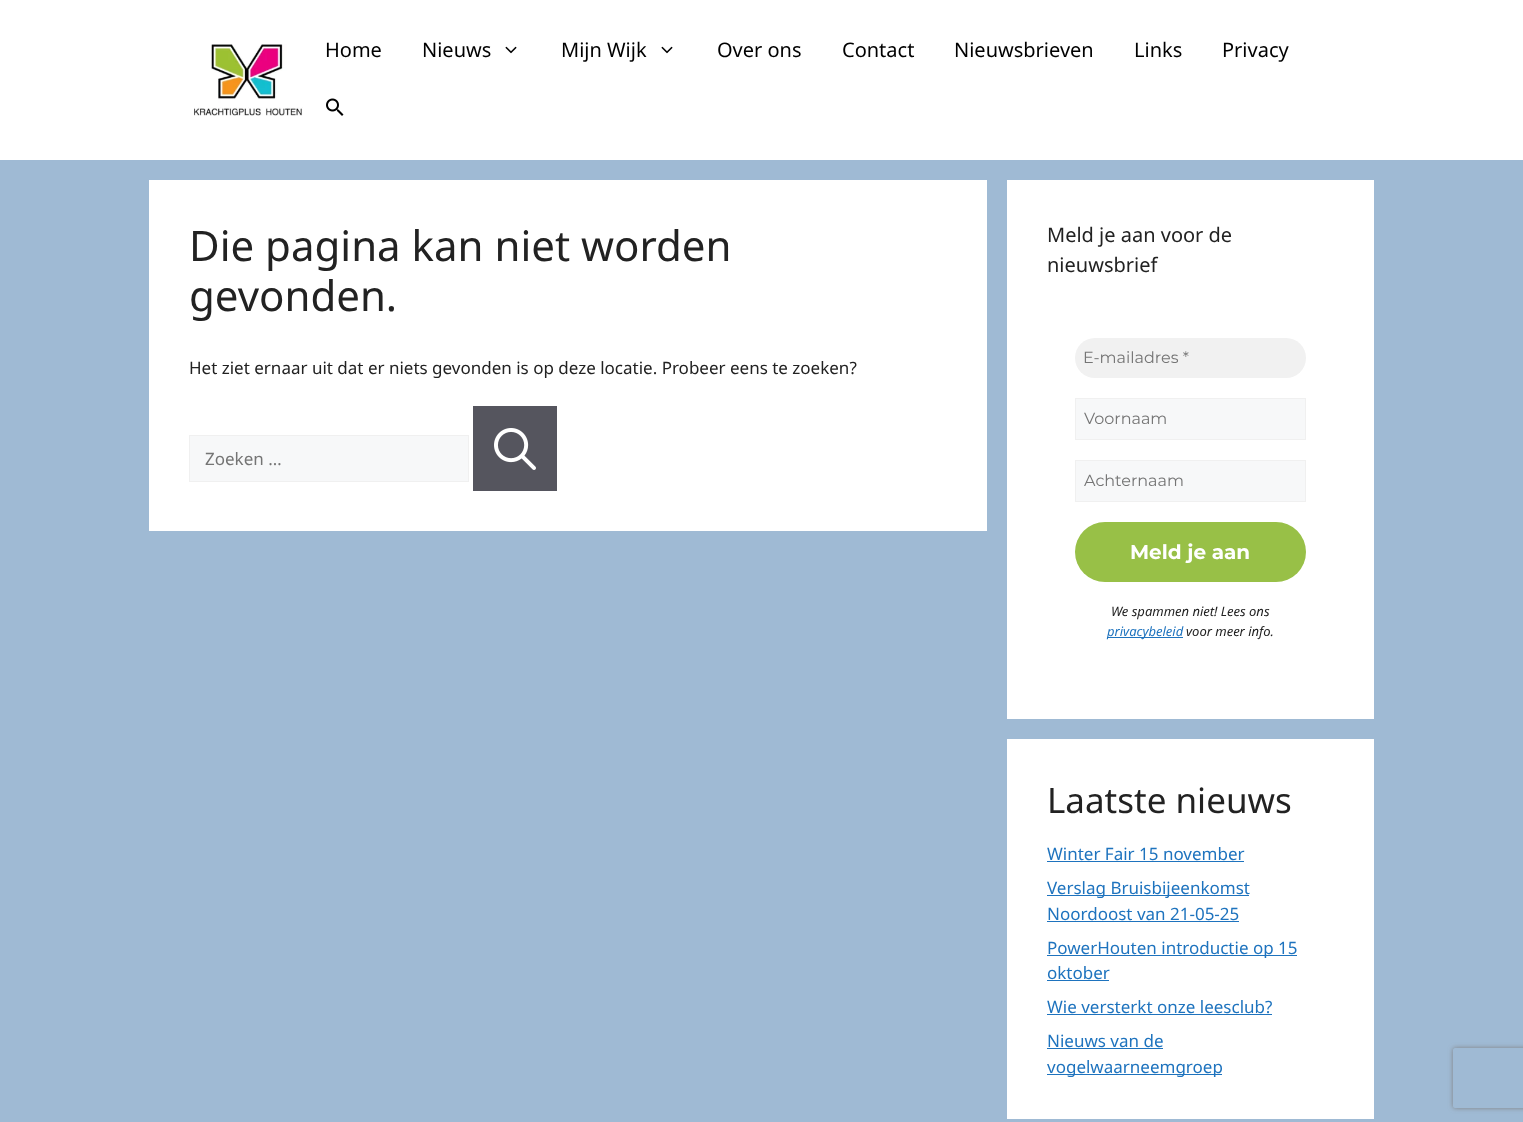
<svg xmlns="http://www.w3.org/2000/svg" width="1523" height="1122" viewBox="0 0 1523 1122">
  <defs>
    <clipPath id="clip1"><path d="M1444 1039H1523V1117H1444ZM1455 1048H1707C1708 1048 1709 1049 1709 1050V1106C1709 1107 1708 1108 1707 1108H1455C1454 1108 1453 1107 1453 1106V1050C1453 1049 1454 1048 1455 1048Z" clip-rule="evenodd"/></clipPath>
    <filter id="blur1" x="-50%" y="-200%" width="200%" height="500%"><feGaussianBlur stdDeviation="2.5"/></filter>
  </defs>
  <rect width="100%" height="100%" fill="#9fbad4"/>
  <rect x="0" y="0" width="1523" height="160" fill="#ffffff"/>
  <image x="194" y="44" width="109" height="72" href="img1.png"/>
  <text x="325" y="57" font-family="Noto Sans" font-size="20" fill="#000000">Home</text>
  <text x="422" y="57" font-family="Noto Sans" font-size="20" fill="#000000">Nieuws</text>
  <image x="505" y="46" width="12" height="8" href="img2.png"/>
  <text x="561" y="57" font-family="Noto Sans" font-size="20" fill="#000000">Mijn Wijk</text>
  <image x="661" y="46" width="12" height="8" href="img2.png"/>
  <text x="717" y="57" font-family="Noto Sans" font-size="20" fill="#000000">Over ons</text>
  <text x="842" y="57" font-family="Noto Sans" font-size="20" fill="#000000">Contact</text>
  <text x="954" y="57" font-family="Noto Sans" font-size="20" fill="#000000">Nieuwsbrieven</text>
  <text x="1134" y="57" font-family="Noto Sans" font-size="20" fill="#000000">Links</text>
  <text x="1222" y="57" font-family="Noto Sans" font-size="20" fill="#000000">Privacy</text>
  <image x="326" y="98" width="18" height="18" href="img3.png"/>
  <rect x="149" y="180" width="838" height="351" fill="#ffffff"/>
  <text x="189" y="261" font-family="Noto Sans" font-size="42" fill="#222222">Die pagina kan niet worden</text>
  <text x="189" y="311" font-family="Noto Sans" font-size="42" fill="#222222">gevonden.</text>
  <text x="189" y="374" font-family="Noto Sans" font-size="17" fill="#222222">Het ziet ernaar uit dat er niets gevonden is op deze locatie. Probeer eens te zoeken?</text>
  <rect x="189.5" y="435.5" width="279" height="46" fill="#f7f8f9" stroke="#f0f0f0"/>
  <text x="205" y="465" font-family="Noto Sans" font-size="17" fill="#757575">Zoeken …</text>
  <rect x="473" y="406" width="84" height="85" fill="#55555e"/>
  <image x="494" y="428" width="42" height="42" href="img4.png"/>
  <rect x="1007" y="180" width="367" height="539" fill="#ffffff"/>
  <text x="1047" y="242" font-family="Noto Sans" font-size="20" fill="#222222">Meld je aan voor de</text>
  <text x="1047" y="272" font-family="Noto Sans" font-size="20" fill="#222222">nieuwsbrief</text>
  <rect x="1075" y="338" width="231" height="40" rx="20" fill="#f1f1f1"/>
  <text x="1083" y="363" font-family="Montserrat" font-size="16" fill="#757575">E-mailadres *</text>
  <rect x="1075.5" y="398.5" width="230" height="41" fill="#f7f8f9" stroke="#f0f0f0"/>
  <text x="1084" y="424" font-family="Montserrat" font-size="16" fill="#757575">Voornaam</text>
  <rect x="1075.5" y="460.5" width="230" height="41" fill="#f7f8f9" stroke="#f0f0f0"/>
  <text x="1084" y="486" font-family="Montserrat" font-size="16" fill="#757575">Achternaam</text>
  <rect x="1075" y="522" width="231" height="60" rx="30" fill="#98c047"/>
  <text x="1130" y="559" font-family="Montserrat" font-size="20" font-weight="bold" fill="#ffffff">Meld je aan</text>
  <text x="1111" y="616" font-family="Noto Sans" font-size="13" font-style="italic" fill="#222222">We spammen niet! Lees ons</text>
  <rect x="1107" y="637" width="76" height="1" fill="#1e73be"/>
  <text x="1107" y="636" font-family="Noto Sans" font-size="13" font-style="italic" fill="#1e73be">privacybeleid</text>
  <text x="1186" y="636" font-family="Noto Sans" font-size="13" font-style="italic" fill="#222222">voor meer info.</text>
  <rect x="1007" y="739" width="367" height="380" fill="#ffffff"/>
  <text x="1047" y="813" font-family="Noto Sans" font-size="35" fill="#222222">Laatste nieuws</text>
  <text x="1047" y="860" font-family="Noto Sans" font-size="17" fill="#1e73be">Winter Fair 15 november</text>
  <rect x="1047" y="861" width="197" height="1" fill="#1e73be"/>
  <rect x="1047" y="895" width="202" height="1" fill="#1e73be"/>
  <text x="1047" y="894" font-family="Noto Sans" font-size="17" fill="#1e73be">Verslag Bruisbijeenkomst</text>
  <text x="1047" y="920" font-family="Noto Sans" font-size="17" fill="#1e73be">Noordoost van 21-05-25</text>
  <rect x="1047" y="921" width="192" height="1" fill="#1e73be"/>
  <rect x="1047" y="955" width="250" height="1" fill="#1e73be"/>
  <text x="1047" y="954" font-family="Noto Sans" font-size="17" fill="#1e73be">PowerHouten introductie op 15</text>
  <text x="1047" y="979" font-family="Noto Sans" font-size="17" fill="#1e73be">oktober</text>
  <rect x="1047" y="980" width="62" height="1" fill="#1e73be"/>
  <text x="1047" y="1013" font-family="Noto Sans" font-size="17" fill="#1e73be">Wie versterkt onze leesclub?</text>
  <rect x="1047" y="1014" width="225" height="1" fill="#1e73be"/>
  <text x="1047" y="1047" font-family="Noto Sans" font-size="17" fill="#1e73be">Nieuws van de</text>
  <rect x="1047" y="1048" width="116" height="1" fill="#1e73be"/>
  <rect x="1047" y="1074" width="175" height="1" fill="#1e73be"/>
  <text x="1047" y="1073" font-family="Noto Sans" font-size="17" fill="#1e73be">vogelwaarneemgroep</text>
  <g clip-path="url(#clip1)">
    <rect x="1453" y="1048" width="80" height="60" rx="2" fill="#808080" filter="url(#blur1)"/>
  </g>
</svg>
